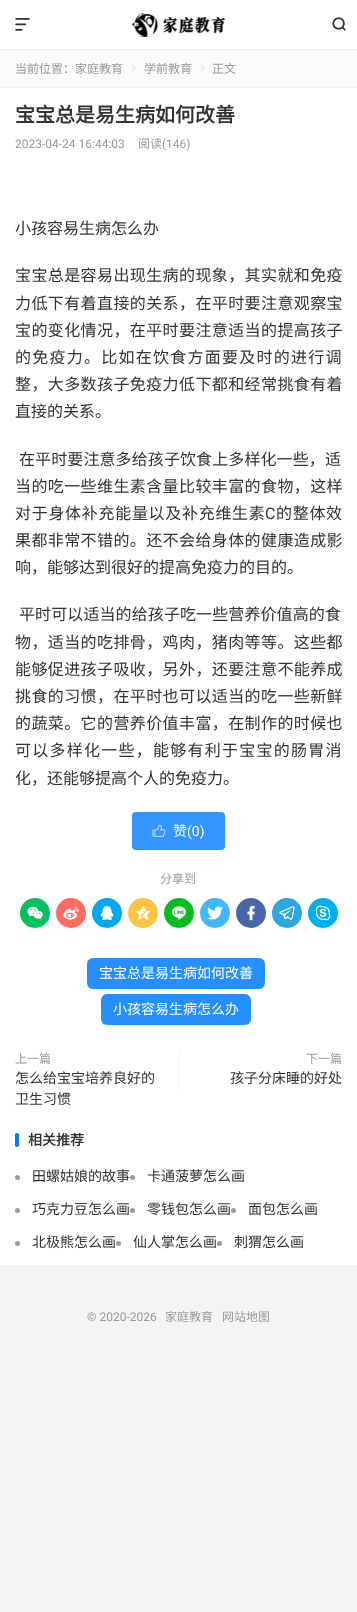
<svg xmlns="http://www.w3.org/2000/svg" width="357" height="1612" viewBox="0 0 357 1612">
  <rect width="100%" height="100%" fill="#f4f4f4"/>
  <rect x="0" y="0" width="357" height="50" fill="#ffffff"/>
  <image x="131" y="13" width="95" height="24" href="img1.png"/>
  <image x="332" y="17" width="14" height="14" href="img2.png"/>
  <rect x="0" y="49" width="357" height="1" rx="0.5" fill="#eeeeee"/>
  <image x="15" y="18" width="15" height="13" href="img3.png"/>
  <rect x="0" y="50" width="357" height="38" fill="#fbfbfb"/>
  <text x="15" y="73" font-family="Noto Sans CJK SC" font-size="12" fill="#999999">当前位置：家庭教育</text>
  <image x="131" y="65" width="5" height="7" href="img4.png"/>
  <text x="144" y="73" font-family="Noto Sans CJK SC" font-size="12" fill="#999999">学前教育</text>
  <image x="200" y="65" width="5" height="7" href="img4.png"/>
  <text x="212" y="73" font-family="Noto Sans CJK SC" font-size="12" fill="#999999">正文</text>
  <rect x="0" y="87" width="357" height="1" rx="0.5" fill="#f3f3f3"/>
  <rect x="0" y="88" width="357" height="1177" fill="#ffffff"/>
  <text x="15" y="122" font-family="Noto Sans CJK SC" font-size="20" font-weight="bold" fill="#333333">宝宝总是易生病如何改善</text>
  <text x="15" y="148" font-family="Roboto" font-size="12" fill="#999999">2023-04-24 16:44:03</text>
  <text x="138" y="148" font-family="Noto Sans CJK SC" font-size="12" fill="#999999">阅读</text>
  <text x="162" y="148" font-family="Roboto" font-size="12" fill="#999999">(146)</text>
  <text x="15" y="234" font-family="Noto Sans CJK SC" font-size="16" fill="#333333">小孩容易生病怎么办</text>
  <text x="15" y="281" font-family="Noto Sans CJK SC" font-size="16" letter-spacing="0.4" fill="#333333">宝宝总是容易出现生病的现象，其实就和免疫</text>
  <text x="15" y="309" font-family="Noto Sans CJK SC" font-size="16" letter-spacing="0.4" fill="#333333">力低下有着直接的关系，在平时要注意观察宝</text>
  <text x="15" y="336" font-family="Noto Sans CJK SC" font-size="16" letter-spacing="0.4" fill="#333333">宝的变化情况，在平时要注意适当的提高孩子</text>
  <text x="15" y="363" font-family="Noto Sans CJK SC" font-size="16" letter-spacing="1.25" fill="#333333">的免疫力。比如在饮食方面要及时的进行调</text>
  <text x="15" y="390" font-family="Noto Sans CJK SC" font-size="16" letter-spacing="0.4" fill="#333333">整，大多数孩子免疫力低下都和经常挑食有着</text>
  <text x="15" y="417" font-family="Noto Sans CJK SC" font-size="16" fill="#333333">直接的关系。</text>
  <text x="19" y="465" font-family="Noto Sans CJK SC" font-size="16" letter-spacing="0.1" fill="#333333">在平时要注意多给孩子饮食上多样化一些，适</text>
  <text x="15" y="492" font-family="Noto Sans CJK SC" font-size="16" letter-spacing="0.4" fill="#333333">当的吃一些维生素含量比较丰富的食物，这样</text>
  <text x="15" y="519" font-family="Noto Sans CJK SC" font-size="16" letter-spacing="0.7" fill="#333333">对于身体补充能量以及补充维生素</text>
  <text x="265" y="519" font-family="Roboto" font-size="16" letter-spacing="0.7" fill="#333333">C</text>
  <text x="276" y="519" font-family="Noto Sans CJK SC" font-size="16" letter-spacing="0.7" fill="#333333">的整体效</text>
  <text x="15" y="546" font-family="Noto Sans CJK SC" font-size="16" letter-spacing="0.4" fill="#333333">果都非常不错的。还不会给身体的健康造成影</text>
  <text x="15" y="573" font-family="Noto Sans CJK SC" font-size="16" fill="#333333">响，能够达到很好的提高免疫力的目的。</text>
  <text x="19" y="620" font-family="Noto Sans CJK SC" font-size="16" letter-spacing="0.1" fill="#333333">平时可以适当的给孩子吃一些营养价值高的食</text>
  <text x="15" y="648" font-family="Noto Sans CJK SC" font-size="16" letter-spacing="0.4" fill="#333333">物，适当的吃排骨，鸡肉，猪肉等等。这些都</text>
  <text x="15" y="675" font-family="Noto Sans CJK SC" font-size="16" letter-spacing="0.4" fill="#333333">能够促进孩子吸收，另外，还要注意不能养成</text>
  <text x="15" y="702" font-family="Noto Sans CJK SC" font-size="16" letter-spacing="0.4" fill="#333333">挑食的习惯，在平时也可以适当的吃一些新鲜</text>
  <text x="15" y="729" font-family="Noto Sans CJK SC" font-size="16" letter-spacing="0.4" fill="#333333">的蔬菜。它的营养价值丰富，在制作的时候也</text>
  <text x="15" y="756" font-family="Noto Sans CJK SC" font-size="16" letter-spacing="1.25" fill="#333333">可以多样化一些，能够有利于宝宝的肠胃消</text>
  <text x="15" y="784" font-family="Noto Sans CJK SC" font-size="16" fill="#333333">化，还能够提高个人的免疫力。</text>
  <rect x="132" y="812" width="93" height="38" rx="4" fill="#3395ff"/>
  <image x="152" y="824" width="14" height="13" href="img5.png"/>
  <text x="173" y="836" font-family="Noto Sans CJK SC" font-size="14" fill="#ffffff">赞</text>
  <text x="187" y="836" font-family="Roboto" font-size="14" fill="#ffffff">(0)</text>
  <text x="160" y="883" font-family="Noto Sans CJK SC" font-size="12" fill="#999999">分享到</text>
  <circle cx="35" cy="913" r="15" fill="#07c160"/>
  <image x="27" y="906" width="16" height="14" href="img6.png"/>
  <circle cx="71" cy="913" r="15" fill="#ff6b60"/>
  <image x="63" y="906" width="16" height="14" href="img7.png"/>
  <circle cx="107" cy="913" r="15" fill="#00a9ee"/>
  <image x="100" y="906" width="14" height="14" href="img8.png"/>
  <circle cx="143" cy="913" r="15" fill="#fbc440"/>
  <image x="135" y="905" width="16" height="15" href="img9.png"/>
  <circle cx="179" cy="913" r="15" fill="#08bc1f"/>
  <image x="172" y="906" width="14" height="14" href="img10.png"/>
  <circle cx="215" cy="913" r="15" fill="#41b8fc"/>
  <image x="207" y="906" width="16" height="14" href="img11.png"/>
  <circle cx="251" cy="913" r="15" fill="#4867aa"/>
  <image x="247" y="905" width="8" height="16" href="img12.png"/>
  <circle cx="287" cy="913" r="15" fill="#2ca5e0"/>
  <image x="279" y="906" width="16" height="14" href="img13.png"/>
  <circle cx="323" cy="913" r="15" fill="#00aff0"/>
  <image x="315" y="905" width="16" height="16" href="img14.png"/>
  <rect x="87" y="958" width="178" height="31" rx="6" fill="#268fff"/>
  <text x="99" y="978" font-family="Noto Sans CJK SC" font-size="14" fill="#ffffff">宝宝总是易生病如何改善</text>
  <rect x="101" y="994" width="150" height="31" rx="6" fill="#268fff"/>
  <text x="113" y="1014" font-family="Noto Sans CJK SC" font-size="14" fill="#ffffff">小孩容易生病怎么办</text>
  <text x="15" y="1063" font-family="Noto Sans CJK SC" font-size="12" fill="#999999">上一篇</text>
  <text x="15" y="1083" font-family="Noto Sans CJK SC" font-size="14" fill="#333333">怎么给宝宝培养良好的</text>
  <text x="15" y="1104" font-family="Noto Sans CJK SC" font-size="14" fill="#333333">卫生习惯</text>
  <rect x="179" y="1050" width="1" height="39" fill="#f3f3f3"/>
  <text x="306" y="1063" font-family="Noto Sans CJK SC" font-size="12" fill="#999999">下一篇</text>
  <text x="230" y="1083" font-family="Noto Sans CJK SC" font-size="14" fill="#333333">孩子分床睡的好处</text>
  <rect x="15" y="1133" width="4" height="14" rx="2" fill="#007bff"/>
  <text x="28" y="1145" font-family="Noto Sans CJK SC" font-size="14" font-weight="bold" fill="#333333">相关推荐</text>
  <circle cx="17.5" cy="1177.5" r="2.5" fill="#999999"/>
  <text x="32" y="1181" font-family="Noto Sans CJK SC" font-size="14" fill="#333333">田螺姑娘的故事</text>
  <circle cx="132.5" cy="1177.5" r="2.5" fill="#999999"/>
  <text x="147" y="1181" font-family="Noto Sans CJK SC" font-size="14" fill="#333333">卡通菠萝怎么画</text>
  <circle cx="17.5" cy="1210.5" r="2.5" fill="#999999"/>
  <text x="32" y="1214" font-family="Noto Sans CJK SC" font-size="14" fill="#333333">巧克力豆怎么画</text>
  <circle cx="132.5" cy="1210.5" r="2.5" fill="#999999"/>
  <text x="147" y="1214" font-family="Noto Sans CJK SC" font-size="14" fill="#333333">零钱包怎么画</text>
  <circle cx="233.5" cy="1210.5" r="2.5" fill="#999999"/>
  <text x="248" y="1214" font-family="Noto Sans CJK SC" font-size="14" fill="#333333">面包怎么画</text>
  <circle cx="17.5" cy="1243.5" r="2.5" fill="#999999"/>
  <text x="32" y="1247" font-family="Noto Sans CJK SC" font-size="14" fill="#333333">北极熊怎么画</text>
  <circle cx="118.5" cy="1243.5" r="2.5" fill="#999999"/>
  <text x="133" y="1247" font-family="Noto Sans CJK SC" font-size="14" fill="#333333">仙人掌怎么画</text>
  <circle cx="219.5" cy="1243.5" r="2.5" fill="#999999"/>
  <text x="234" y="1247" font-family="Noto Sans CJK SC" font-size="14" fill="#333333">刺猬怎么画</text>
  <text x="87" y="1321" font-family="Roboto" font-size="12" fill="#999999">© 2020-2026</text>
  <text x="165" y="1321" font-family="Noto Sans CJK SC" font-size="12" fill="#999999">家庭教育</text>
  <text x="222" y="1321" font-family="Noto Sans CJK SC" font-size="12" fill="#999999">网站地图</text>
</svg>
